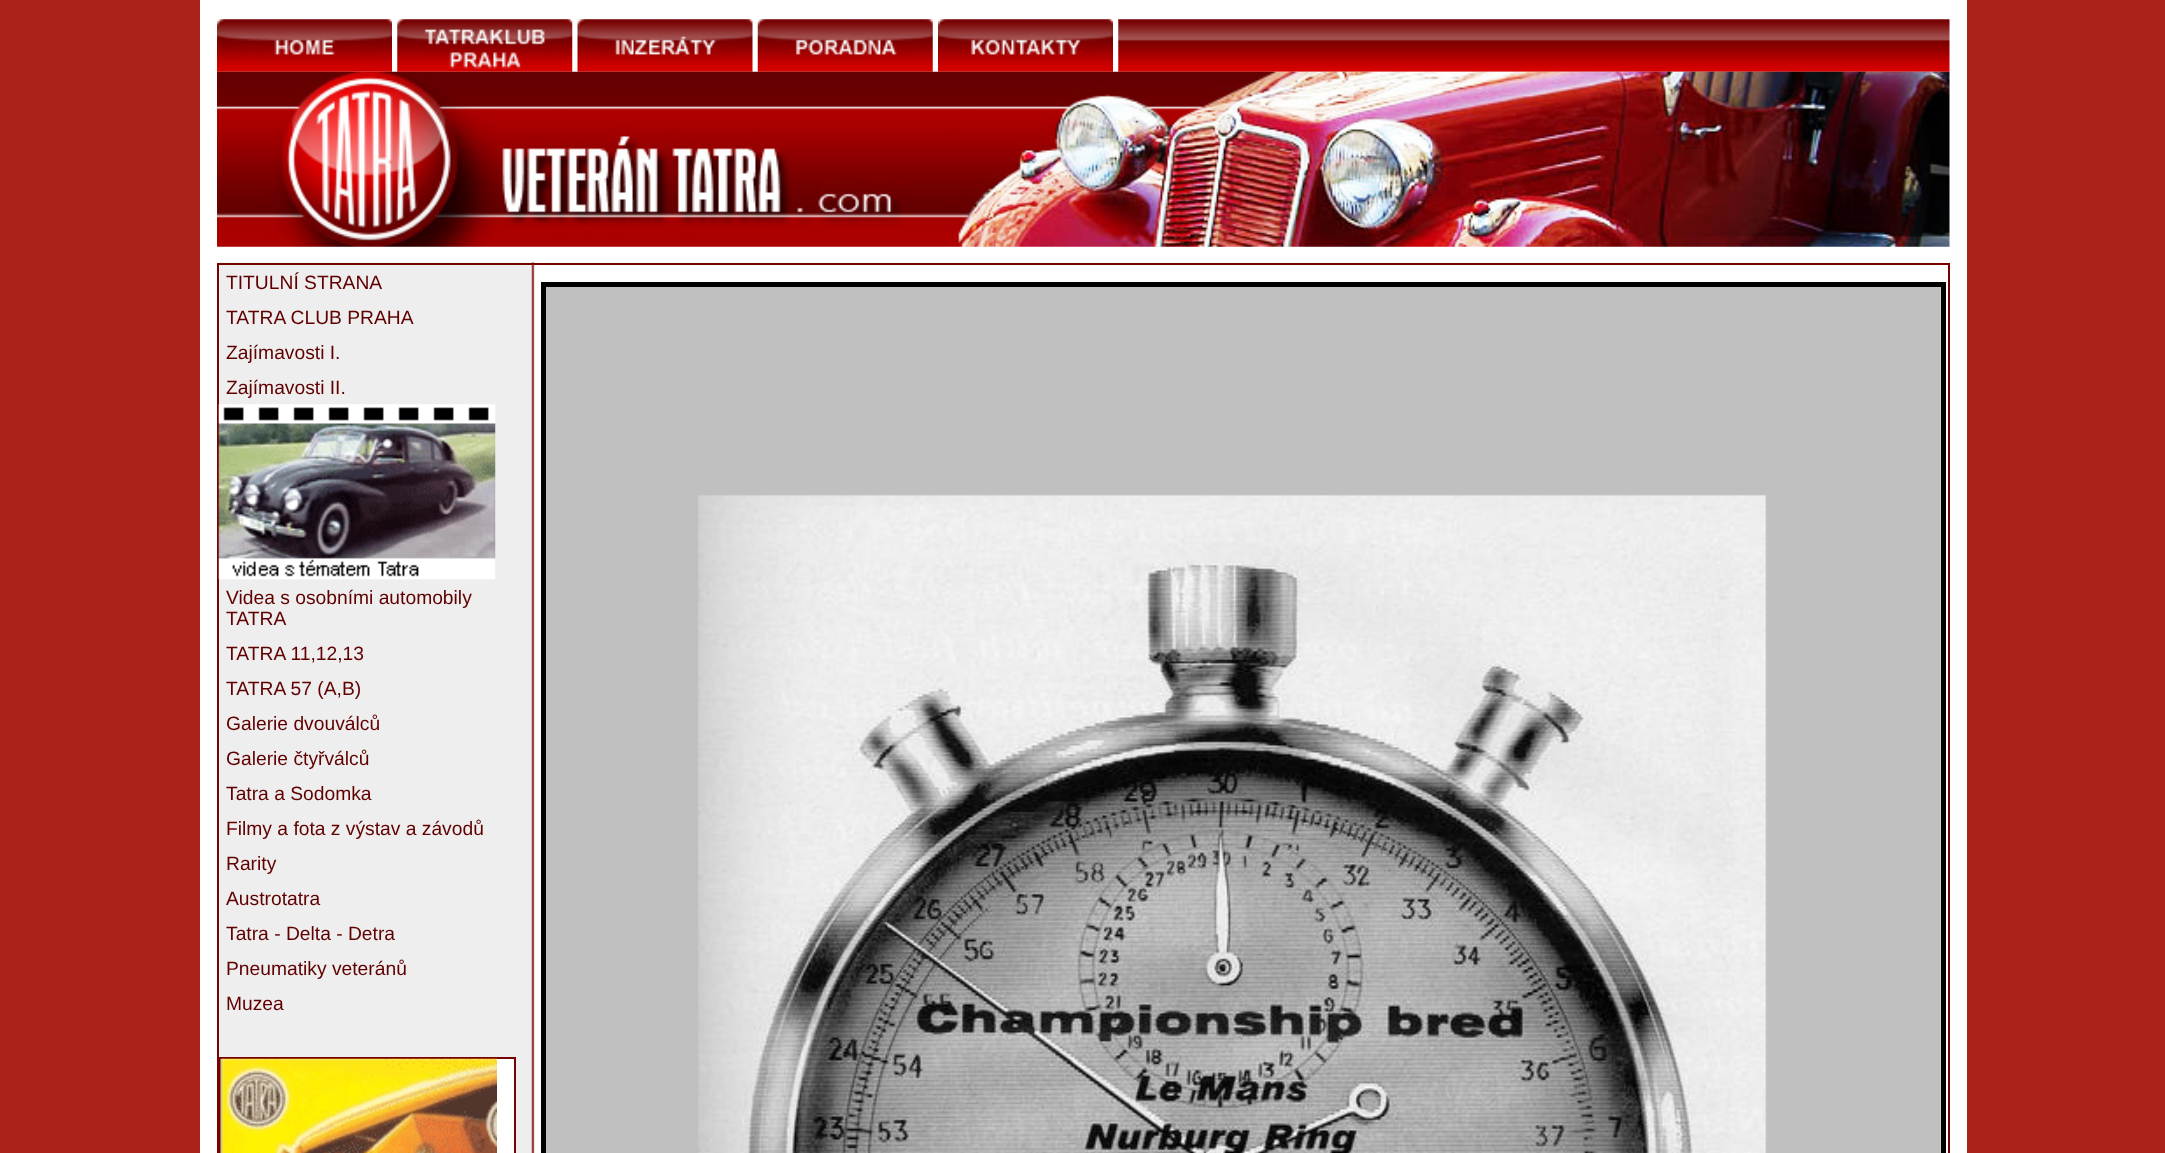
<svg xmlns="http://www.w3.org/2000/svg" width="2165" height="1153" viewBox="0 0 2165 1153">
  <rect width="100%" height="100%" fill="#ab2219"/>
  <rect x="200" y="0" width="1767" height="1153" fill="#ffffff"/>
  <image x="217" y="19" width="175" height="53" href="img1.png"/>
  <image x="397" y="19" width="176" height="53" href="img2.png"/>
  <image x="577" y="19" width="176" height="53" href="img3.png"/>
  <image x="757" y="19" width="176" height="53" href="img4.png"/>
  <image x="938" y="19" width="175" height="53" href="img5.png"/>
  <image x="1118" y="19" width="832" height="53" href="img6.png"/>
  <image x="217" y="71" width="1733" height="176" href="img7.png"/>
  <image x="218" y="262" width="317" height="891" href="img8.png"/>
  <rect x="218" y="264" width="1731" height="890" fill="none" stroke="#770000" stroke-width="2"/>
  <text x="226" y="289" font-family="Liberation Sans" font-size="19.25" fill="#600000">TITULNÍ STRANA</text>
  <text x="226" y="324" font-family="Liberation Sans" font-size="19.25" fill="#600000">TATRA CLUB PRAHA</text>
  <text x="226" y="359" font-family="Liberation Sans" font-size="19.25" fill="#600000">Zajímavosti I.</text>
  <text x="226" y="394" font-family="Liberation Sans" font-size="19.25" fill="#600000">Zajímavosti II.</text>
  <image x="218" y="404" width="278" height="176" href="img9.png"/>
  <text x="226" y="604" font-family="Liberation Sans" font-size="19.25" fill="#600000">Videa s osobními automobily</text>
  <text x="226" y="625" font-family="Liberation Sans" font-size="19.25" fill="#600000">TATRA</text>
  <text x="226" y="660" font-family="Liberation Sans" font-size="19.25" fill="#600000">TATRA 11,12,13</text>
  <text x="226" y="695" font-family="Liberation Sans" font-size="19.25" fill="#600000">TATRA 57 (A,B)</text>
  <text x="226" y="730" font-family="Liberation Sans" font-size="19.25" fill="#600000">Galerie dvouválců</text>
  <text x="226" y="765" font-family="Liberation Sans" font-size="19.25" fill="#600000">Galerie čtyřválců</text>
  <text x="226" y="800" font-family="Liberation Sans" font-size="19.25" fill="#600000">Tatra a Sodomka</text>
  <text x="226" y="835" font-family="Liberation Sans" font-size="19.25" fill="#600000">Filmy a fota z výstav a závodů</text>
  <text x="226" y="870" font-family="Liberation Sans" font-size="19.25" fill="#600000">Rarity</text>
  <text x="226" y="905" font-family="Liberation Sans" font-size="19.25" fill="#600000">Austrotatra</text>
  <text x="226" y="940" font-family="Liberation Sans" font-size="19.25" fill="#600000">Tatra - Delta - Detra</text>
  <text x="226" y="975" font-family="Liberation Sans" font-size="19.25" fill="#600000">Pneumatiky veteránů</text>
  <text x="226" y="1010" font-family="Liberation Sans" font-size="19.25" fill="#600000">Muzea</text>
  <rect x="497" y="1059" width="17" height="94" fill="#ffffff"/>
  <rect x="220" y="1058" width="295" height="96" fill="none" stroke="#770000" stroke-width="2"/>
  <image x="220" y="1058" width="277" height="95" href="img10.png"/>
  <rect x="543.5" y="284.5" width="1400" height="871" fill="none" stroke="#000000" stroke-width="5"/>
  <image x="546" y="287" width="1395" height="866" href="img11.png"/>
</svg>
